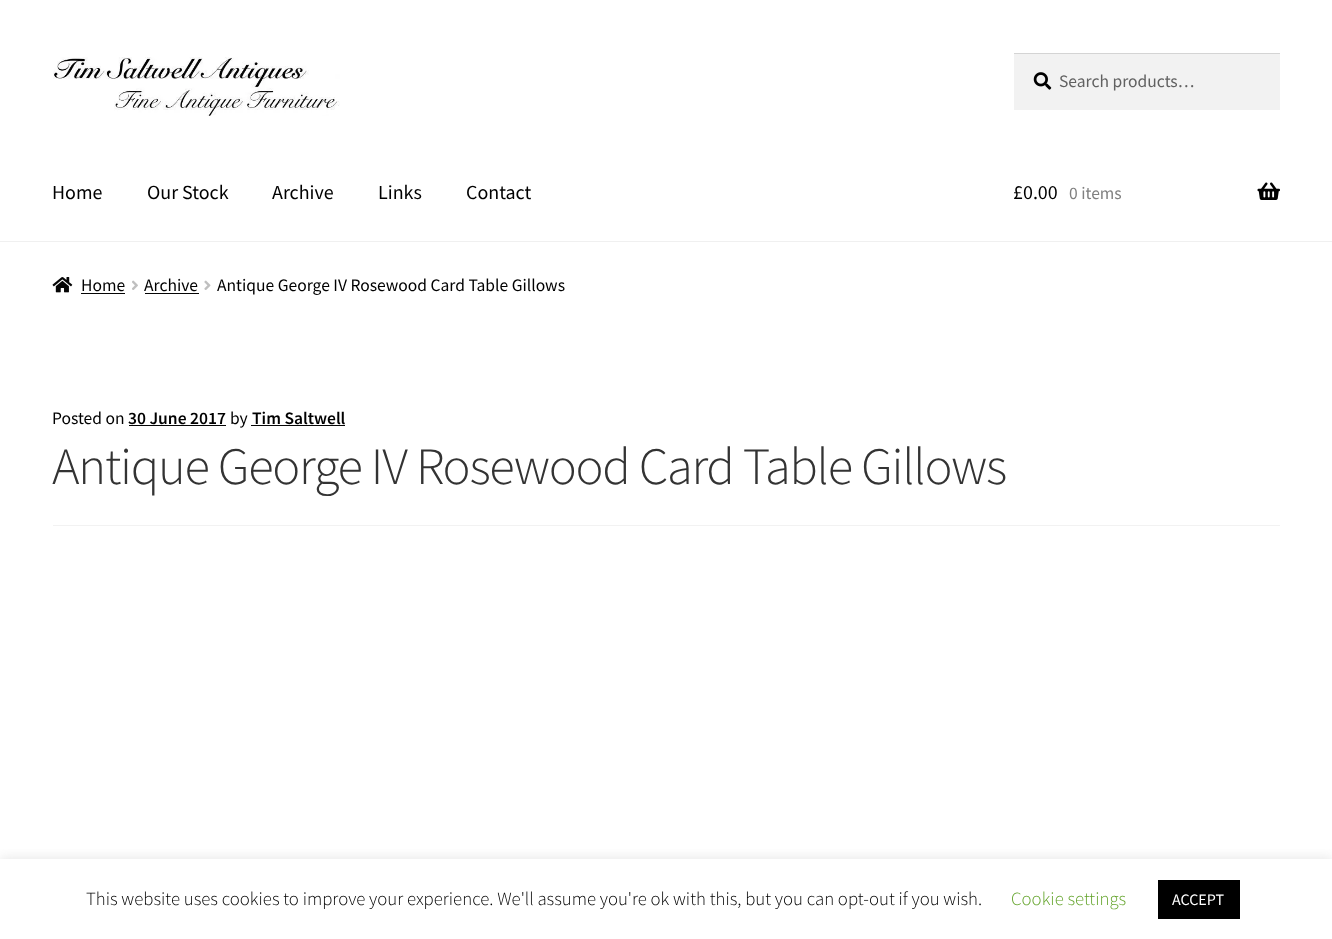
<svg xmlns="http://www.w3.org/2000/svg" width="1332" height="939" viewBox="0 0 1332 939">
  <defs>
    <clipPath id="clip1"><rect x="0" y="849" width="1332" height="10"/></clipPath>
    <filter id="blur1" x="-50%" y="-200%" width="200%" height="500%"><feGaussianBlur stdDeviation="6"/></filter>
  </defs>
  <rect width="100%" height="100%" fill="#ffffff"/>
  <rect x="0" y="241" width="1332" height="1" fill="#f0f0f0"/>
  <image x="53" y="57" width="287" height="59" href="img1.png"/>
  <rect x="1014" y="54" width="266" height="56" fill="#f2f2f2"/>
  <image x="1033" y="72" width="19" height="18" href="img2.png"/>
  <rect x="1014" y="53" width="266" height="1" fill="#d4d4d4"/>
  <text x="1059" y="87" font-family="Source Sans Pro" font-size="17.5" fill="#616161">Search products…</text>
  <text x="52" y="199" font-family="Source Sans Pro" font-size="20" fill="#000000">Home</text>
  <text x="147" y="199" font-family="Source Sans Pro" font-size="20" fill="#000000">Our Stock</text>
  <text x="272" y="199" font-family="Source Sans Pro" font-size="20" fill="#000000">Archive</text>
  <text x="378" y="199" font-family="Source Sans Pro" font-size="20" fill="#000000">Links</text>
  <text x="466" y="199" font-family="Source Sans Pro" font-size="20" fill="#000000">Contact</text>
  <text x="1013" y="199" font-family="Source Sans Pro" font-size="20" fill="#000000">£0.00</text>
  <text x="1069" y="199" font-family="Source Sans Pro" font-size="17.5" fill="#808080">0 items</text>
  <image x="1257" y="182" width="23" height="18" href="img3.png"/>
  <image x="52" y="277" width="21" height="16" href="img4.png"/>
  <text x="81" y="291" font-family="Source Sans Pro" font-size="17.5" fill="#000000">Home</text>
  <rect x="81" y="293" width="44" height="1" fill="#050505"/>
  <image x="132" y="280" width="6" height="10" href="img5.png"/>
  <text x="144" y="291" font-family="Source Sans Pro" font-size="17.5" fill="#000000">Archive</text>
  <rect x="145" y="293" width="54" height="1" fill="#050505"/>
  <image x="204" y="280" width="7" height="10" href="img6.png"/>
  <text x="217" y="291" font-family="Source Sans Pro" font-size="17.5" fill="#000000">Antique George IV Rosewood Card Table Gillows</text>
  <rect x="53" y="525" width="1227" height="1" fill="#f2f2f2"/>
  <text x="52" y="424" font-family="Source Sans Pro" font-size="17.5" fill="#000000">Posted on</text>
  <text x="128" y="424" font-family="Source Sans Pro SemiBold" font-size="17.5" font-weight="600" fill="#000000">30 June 2017</text>
  <rect x="129" y="425" width="97" height="1" fill="#050505"/>
  <text x="230" y="424" font-family="Source Sans Pro" font-size="17.5" fill="#000000">by</text>
  <rect x="251" y="425" width="94" height="1" fill="#050505"/>
  <text x="252" y="424" font-family="Source Sans Pro SemiBold" font-size="17.5" font-weight="600" fill="#000000">Tim Saltwell</text>
  <text x="52" y="484" font-family="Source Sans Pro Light" font-size="52.4" font-weight="300" letter-spacing="-1.25" fill="#333333">Antique George IV Rosewood Card Table Gillows</text>
  <g clip-path="url(#clip1)">
    <rect x="0" y="858" width="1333" height="81" fill="#acabab" fill-opacity="0.3" filter="url(#blur1)"/>
  </g>
  <text x="86" y="905" font-family="Source Sans Pro Light" font-size="18.75" font-weight="300" fill="#000000">This website uses cookies to improve your experience. We'll assume you're ok with this, but you can opt-out if you wish.</text>
  <text x="1011" y="905" font-family="Source Sans Pro Light" font-size="18.75" font-weight="300" fill="#62a329">Cookie settings</text>
  <rect x="1158" y="880" width="82" height="39" fill="#000000"/>
  <text x="1172" y="905" font-family="Source Sans Pro" font-size="16" fill="#ffffff">ACCEPT</text>
</svg>
